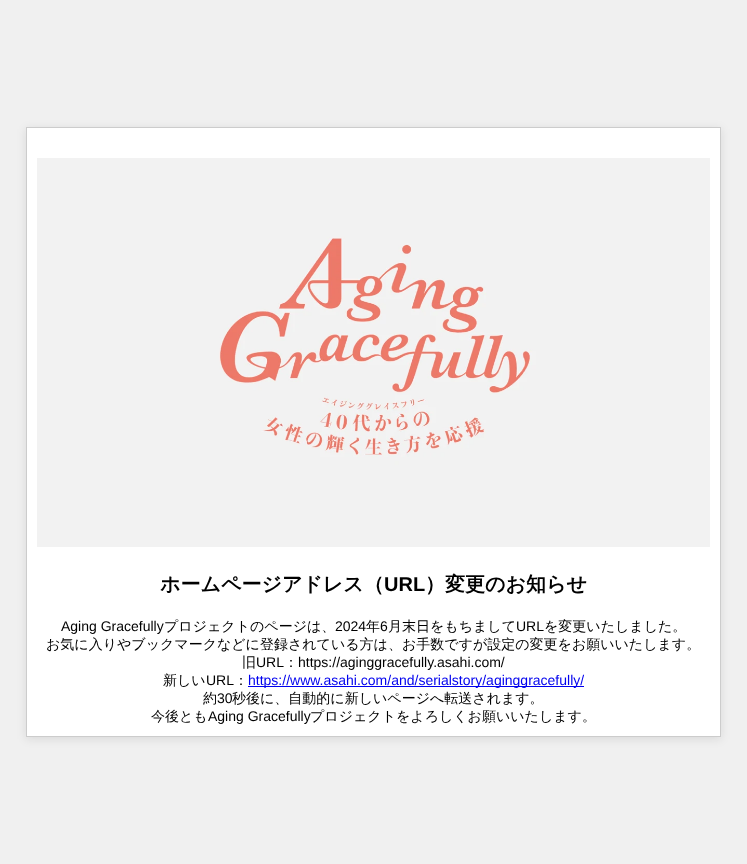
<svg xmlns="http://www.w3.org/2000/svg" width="747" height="864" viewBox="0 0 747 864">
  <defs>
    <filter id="blur1" x="-50%" y="-200%" width="200%" height="500%"><feGaussianBlur stdDeviation="5"/></filter>
  </defs>
  <rect width="100%" height="100%" fill="#f0f0f0"/>
  <rect x="26" y="129" width="695" height="610" fill="#000000" fill-opacity="0.1" filter="url(#blur1)"/>
  <rect x="26.5" y="127.5" width="694" height="609" fill="#ffffff" stroke="#cccccc"/>
  <image x="37" y="158" width="673" height="389" href="img1.png"/>
  <text x="160" y="591" font-family="WenQuanYi Zen Hei" font-size="20" font-weight="bold" fill="#000000">ホームページアドレス（</text>
  <text x="384" y="591" font-family="Liberation Sans" font-size="20" font-weight="bold" fill="#000000">URL</text>
  <text x="425" y="591" font-family="WenQuanYi Zen Hei" font-size="20" font-weight="bold" fill="#000000">）変更のお知らせ</text>
  <text x="61" y="631" font-family="Liberation Sans" font-size="14" fill="#000000">Aging Gracefully</text>
  <text x="164" y="631" font-family="WenQuanYi Zen Hei" font-size="14" font-weight="500" fill="#000000">プロジェクトのページは、</text>
  <text x="335" y="631" font-family="Liberation Sans" font-size="14" fill="#000000">2024</text>
  <text x="366" y="631" font-family="WenQuanYi Zen Hei" font-size="14" font-weight="500" fill="#000000">年</text>
  <text x="380" y="631" font-family="Liberation Sans" font-size="14" fill="#000000">6</text>
  <text x="388" y="631" font-family="WenQuanYi Zen Hei" font-size="14" font-weight="500" fill="#000000">月末日をもちまして</text>
  <text x="516" y="631" font-family="Liberation Sans" font-size="14" fill="#000000">URL</text>
  <text x="544" y="631" font-family="WenQuanYi Zen Hei" font-size="14" font-weight="500" fill="#000000">を変更いたしました。</text>
  <text x="46" y="649" font-family="WenQuanYi Zen Hei" font-size="14" font-weight="500" fill="#000000">お気に入りやブックマークなどに登録されている方は、お手数ですが設定の変更をお願いいたします。</text>
  <text x="242" y="667" font-family="WenQuanYi Zen Hei" font-size="14" font-weight="500" fill="#000000">旧</text>
  <text x="256" y="667" font-family="Liberation Sans" font-size="14" fill="#000000">URL</text>
  <text x="284" y="667" font-family="WenQuanYi Zen Hei" font-size="14" font-weight="500" fill="#000000">：</text>
  <text x="298" y="667" font-family="Liberation Sans" font-size="14" fill="#000000">https://aginggracefully.asahi.com/</text>
  <text x="163" y="685" font-family="WenQuanYi Zen Hei" font-size="14" font-weight="500" fill="#000000">新しい</text>
  <text x="206" y="685" font-family="Liberation Sans" font-size="14" fill="#000000">URL</text>
  <text x="234" y="685" font-family="WenQuanYi Zen Hei" font-size="14" font-weight="500" fill="#000000">：</text>
  <rect x="248" y="686" width="336" height="1" fill="#0000ee"/>
  <text x="248" y="685" font-family="Liberation Sans" font-size="14" fill="#0000ee">https://www.asahi.com/and/serialstory/aginggracefully/</text>
  <text x="203" y="703" font-family="WenQuanYi Zen Hei" font-size="14" font-weight="500" fill="#000000">約</text>
  <text x="217" y="703" font-family="Liberation Sans" font-size="14" fill="#000000">30</text>
  <text x="232" y="703" font-family="WenQuanYi Zen Hei" font-size="14" font-weight="500" fill="#000000">秒後に、自動的に新しいページへ転送されます。</text>
  <text x="151" y="721" font-family="WenQuanYi Zen Hei" font-size="14" font-weight="500" fill="#000000">今後とも</text>
  <text x="208" y="721" font-family="Liberation Sans" font-size="14" fill="#000000">Aging Gracefully</text>
  <text x="310" y="721" font-family="WenQuanYi Zen Hei" font-size="14" font-weight="500" fill="#000000">プロジェクトをよろしくお願いいたします。</text>
</svg>
